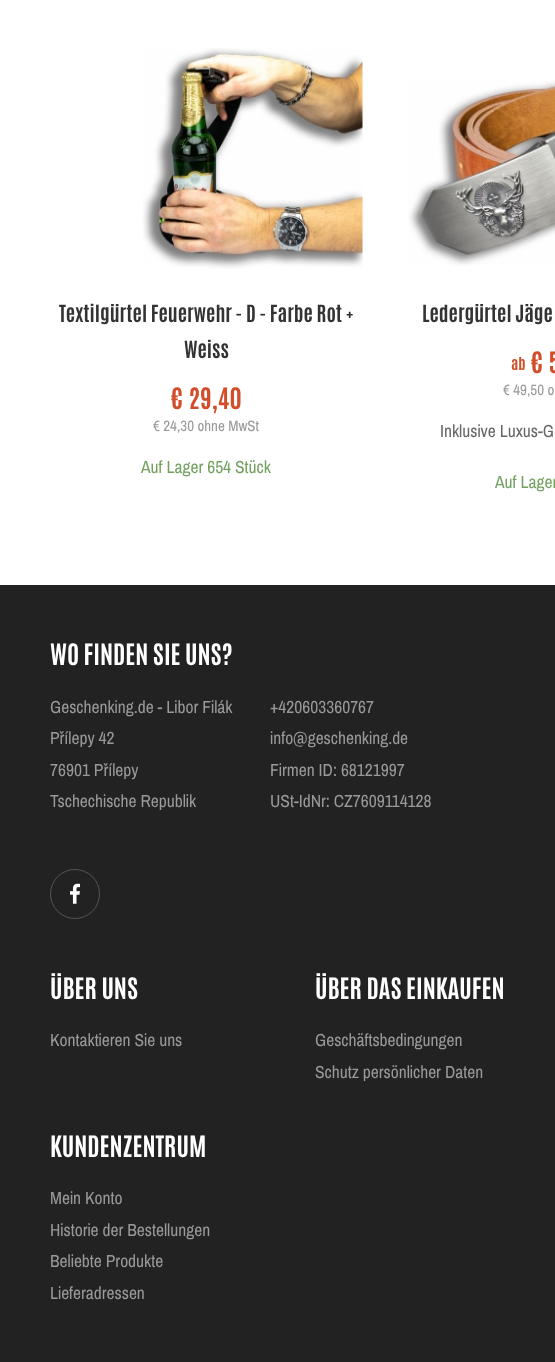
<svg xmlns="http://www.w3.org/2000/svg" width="555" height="1362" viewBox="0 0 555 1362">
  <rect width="100%" height="100%" fill="#ffffff"/>
  <image x="142" y="48" width="221" height="221" href="img1.png"/>
  <text x="59" y="322" font-family="Antonio" font-size="20" font-weight="bold" fill="#333333">Textilgürtel Feuerwehr - D - Farbe Rot +</text>
  <text x="184" y="358" font-family="Antonio" font-size="20" font-weight="bold" fill="#333333">Weiss</text>
  <text x="171" y="409" font-family="Antonio" font-size="25" font-weight="bold" fill="#d24d29">€ 29,40</text>
  <text x="153" y="431" font-family="Archivo Narrow" font-size="15" fill="#999999">€ 24,30 ohne MwSt</text>
  <text x="141" y="473" font-family="Archivo Narrow" font-size="17.5" fill="#74a162">Auf Lager 654 Stück</text>
  <image x="408" y="80" width="147" height="186" href="img2.png"/>
  <text x="422" y="322" font-family="Antonio" font-size="20" font-weight="bold" fill="#333333">Ledergürtel Jäge</text>
  <text x="511" y="370" font-family="Antonio" font-size="15" font-weight="bold" fill="#d24d29">ab</text>
  <text x="531" y="373" font-family="Antonio" font-size="25" font-weight="bold" fill="#d24d29">€ 5</text>
  <text x="503" y="395" font-family="Archivo Narrow" font-size="15" fill="#999999">€ 49,50 o</text>
  <text x="440" y="437" font-family="Archivo Narrow" font-size="17.5" fill="#666666">Inklusive Luxus-G</text>
  <text x="495" y="488" font-family="Archivo Narrow" font-size="17.5" fill="#74a162">Auf Lager</text>
  <rect x="0" y="585" width="555" height="777" fill="#222222"/>
  <text x="50" y="665" font-family="Antonio" font-size="25" font-weight="bold" fill="#ffffff">WO FINDEN SIE UNS?</text>
  <text x="50" y="713" font-family="Archivo Narrow" font-size="17.5" fill="#999999">Geschenking.de - Libor Filák</text>
  <text x="50" y="744" font-family="Archivo Narrow" font-size="17.5" fill="#999999">Přílepy 42</text>
  <text x="50" y="776" font-family="Archivo Narrow" font-size="17.5" fill="#999999">76901 Přílepy</text>
  <text x="50" y="807" font-family="Archivo Narrow" font-size="17.5" fill="#999999">Tschechische Republik</text>
  <text x="270" y="713" font-family="Archivo Narrow" font-size="17.5" fill="#999999">+420603360767</text>
  <text x="270" y="744" font-family="Archivo Narrow" font-size="17.5" fill="#999999">info@geschenking.de</text>
  <text x="270" y="776" font-family="Archivo Narrow" font-size="17.5" fill="#999999">Firmen ID: 68121997</text>
  <text x="270" y="807" font-family="Archivo Narrow" font-size="17.5" fill="#999999">USt-IdNr: CZ7609114128</text>
  <image x="70" y="883" width="10" height="21" href="img3.png"/>
  <circle cx="75" cy="894" r="24.5" fill="none" stroke="#555555"/>
  <text x="50" y="999" font-family="Antonio" font-size="25" font-weight="bold" fill="#ffffff">ÜBER UNS</text>
  <text x="50" y="1046" font-family="Archivo Narrow" font-size="17.5" fill="#999999">Kontaktieren Sie uns</text>
  <text x="315" y="999" font-family="Antonio" font-size="25" font-weight="bold" fill="#ffffff">ÜBER DAS EINKAUFEN</text>
  <text x="315" y="1046" font-family="Archivo Narrow" font-size="17.5" fill="#999999">Geschäftsbedingungen</text>
  <text x="315" y="1078" font-family="Archivo Narrow" font-size="17.5" fill="#999999">Schutz persönlicher Daten</text>
  <text x="50" y="1157" font-family="Antonio" font-size="25" font-weight="bold" fill="#ffffff">KUNDENZENTRUM</text>
  <text x="50" y="1204" font-family="Archivo Narrow" font-size="17.5" fill="#999999">Mein Konto</text>
  <text x="50" y="1236" font-family="Archivo Narrow" font-size="17.5" fill="#999999">Historie der Bestellungen</text>
  <text x="50" y="1267" font-family="Archivo Narrow" font-size="17.5" fill="#999999">Beliebte Produkte</text>
  <text x="50" y="1299" font-family="Archivo Narrow" font-size="17.5" fill="#999999">Lieferadressen</text>
</svg>
